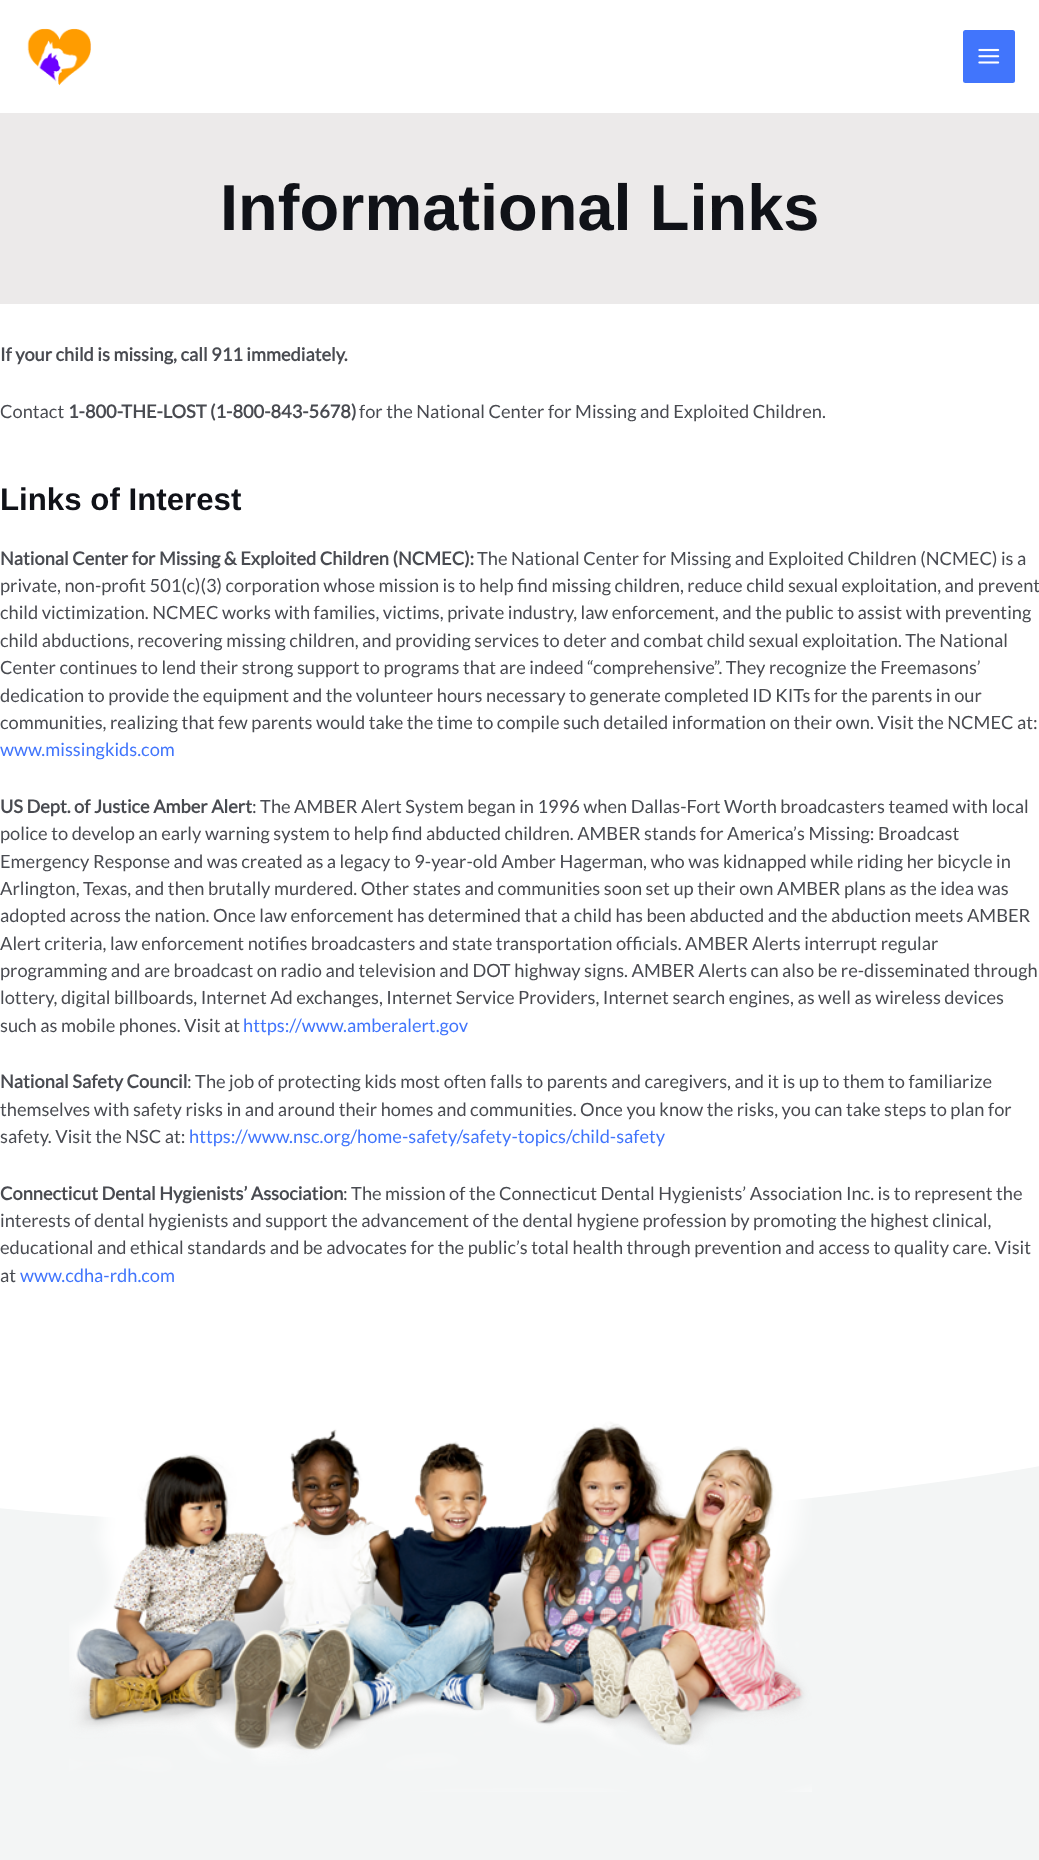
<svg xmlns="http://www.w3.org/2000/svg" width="1039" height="1860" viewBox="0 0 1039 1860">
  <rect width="100%" height="100%" fill="#ffffff"/>
  <image x="27" y="28" width="64" height="58" href="img1.png"/>
  <rect x="963" y="30" width="52" height="53" rx="2.5" fill="#4175fc"/>
  <image x="978" y="48" width="22" height="16" href="img2.png"/>
  <rect x="0" y="113" width="1039" height="191" fill="#eceaea"/>
  <text x="220" y="230" font-family="Liberation Sans" font-size="65" font-weight="bold" fill="#101218">Informational Links</text>
  <text x="0" y="361" font-family="Lato" font-size="18.25" font-weight="bold" fill="#494b51">If your child is missing, call 911 immediately.</text>
  <text x="0" y="418" font-family="Lato" font-size="18.25" fill="#494b51">Contact</text>
  <text x="68" y="418" font-family="Lato" font-size="18.25" font-weight="bold" fill="#494b51">1-800-THE-LOST (1-800-843-5678)</text>
  <text x="359" y="418" font-family="Lato" font-size="18.25" fill="#494b51">for the National Center for Missing and Exploited Children.</text>
  <text x="0" y="510" font-family="Liberation Sans" font-size="31.25" font-weight="bold" fill="#101218">Links of Interest</text>
  <text x="0" y="565" font-family="Lato" font-size="18.25" font-weight="bold" fill="#494b51">National Center for Missing &amp; Exploited Children (NCMEC):</text>
  <text x="477" y="565" font-family="Lato" font-size="18.25" fill="#494b51">The National Center for Missing and Exploited Children (NCMEC) is a</text>
  <text x="0" y="592" font-family="Lato" font-size="18.25" fill="#494b51">private, non-profit 501(c)(3) corporation whose mission is to help find missing children, reduce child sexual exploitation, and prevent</text>
  <text x="0" y="619" font-family="Lato" font-size="18.25" fill="#494b51">child victimization. NCMEC works with families, victims, private industry, law enforcement, and the public to assist with preventing</text>
  <text x="0" y="647" font-family="Lato" font-size="18.25" fill="#494b51">child abductions, recovering missing children, and providing services to deter and combat child sexual exploitation. The National</text>
  <text x="0" y="674" font-family="Lato" font-size="18.25" fill="#494b51">Center continues to lend their strong support to programs that are indeed “comprehensive”. They recognize the Freemasons’</text>
  <text x="0" y="702" font-family="Lato" font-size="18.25" fill="#494b51">dedication to provide the equipment and the volunteer hours necessary to generate completed ID KITs for the parents in our</text>
  <text x="0" y="729" font-family="Lato" font-size="18.25" fill="#494b51">communities, realizing that few parents would take the time to compile such detailed information on their own. Visit the NCMEC at:</text>
  <text x="0" y="756" font-family="Lato" font-size="18.25" fill="#4175fc">www.missingkids.com</text>
  <text x="0" y="813" font-family="Lato" font-size="18.25" font-weight="bold" fill="#494b51">US Dept. of Justice Amber Alert</text>
  <text x="252" y="813" font-family="Lato" font-size="18.25" fill="#494b51">: The AMBER Alert System began in 1996 when Dallas-Fort Worth broadcasters teamed with local</text>
  <text x="0" y="840" font-family="Lato" font-size="18.25" fill="#494b51">police to develop an early warning system to help find abducted children. AMBER stands for America’s Missing: Broadcast</text>
  <text x="0" y="868" font-family="Lato" font-size="18.25" fill="#494b51">Emergency Response and was created as a legacy to 9-year-old Amber Hagerman, who was kidnapped while riding her bicycle in</text>
  <text x="0" y="895" font-family="Lato" font-size="18.25" fill="#494b51">Arlington, Texas, and then brutally murdered. Other states and communities soon set up their own AMBER plans as the idea was</text>
  <text x="0" y="922" font-family="Lato" font-size="18.25" fill="#494b51">adopted across the nation. Once law enforcement has determined that a child has been abducted and the abduction meets AMBER</text>
  <text x="0" y="950" font-family="Lato" font-size="18.25" fill="#494b51">Alert criteria, law enforcement notifies broadcasters and state transportation officials. AMBER Alerts interrupt regular</text>
  <text x="0" y="977" font-family="Lato" font-size="18.25" fill="#494b51">programming and are broadcast on radio and television and DOT highway signs. AMBER Alerts can also be re-disseminated through</text>
  <text x="0" y="1004" font-family="Lato" font-size="18.25" fill="#494b51">lottery, digital billboards, Internet Ad exchanges, Internet Service Providers, Internet search engines, as well as wireless devices</text>
  <text x="0" y="1032" font-family="Lato" font-size="18.25" fill="#494b51">such as mobile phones. Visit at</text>
  <text x="243" y="1032" font-family="Lato" font-size="18.25" fill="#4175fc">https://www.amberalert.gov</text>
  <text x="0" y="1088" font-family="Lato" font-size="18.25" font-weight="bold" fill="#494b51">National Safety Council</text>
  <text x="187" y="1088" font-family="Lato" font-size="18.25" fill="#494b51">: The job of protecting kids most often falls to parents and caregivers, and it is up to them to familiarize</text>
  <text x="0" y="1116" font-family="Lato" font-size="18.25" fill="#494b51">themselves with safety risks in and around their homes and communities. Once you know the risks, you can take steps to plan for</text>
  <text x="0" y="1143" font-family="Lato" font-size="18.25" fill="#494b51">safety. Visit the NSC at:</text>
  <text x="189" y="1143" font-family="Lato" font-size="18.25" fill="#4175fc">https://www.nsc.org/home-safety/safety-topics/child-safety</text>
  <text x="0" y="1200" font-family="Lato" font-size="18.25" font-weight="bold" fill="#494b51">Connecticut Dental Hygienists’ Association</text>
  <text x="343" y="1200" font-family="Lato" font-size="18.25" fill="#494b51">: The mission of the Connecticut Dental Hygienists’ Association Inc. is to represent the</text>
  <text x="0" y="1227" font-family="Lato" font-size="18.25" fill="#494b51">interests of dental hygienists and support the advancement of the dental hygiene profession by promoting the highest clinical,</text>
  <text x="0" y="1254" font-family="Lato" font-size="18.25" fill="#494b51">educational and ethical standards and be advocates for the public’s total health through prevention and access to quality care. Visit</text>
  <text x="0" y="1282" font-family="Lato" font-size="18.25" fill="#494b51">at</text>
  <text x="20" y="1282" font-family="Lato" font-size="18.25" fill="#4175fc">www.cdha-rdh.com</text>
  <rect x="0" y="1466" width="1039" height="394" fill="#f3f5f5"/>
  <path d="M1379 1355V1366C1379 1397 966 1524 322 1523C-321 1521-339 1397-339 1366V1355Z" fill="#ffffff"/>
  <image x="69" y="1421" width="743" height="371" href="img3.png"/>
</svg>
